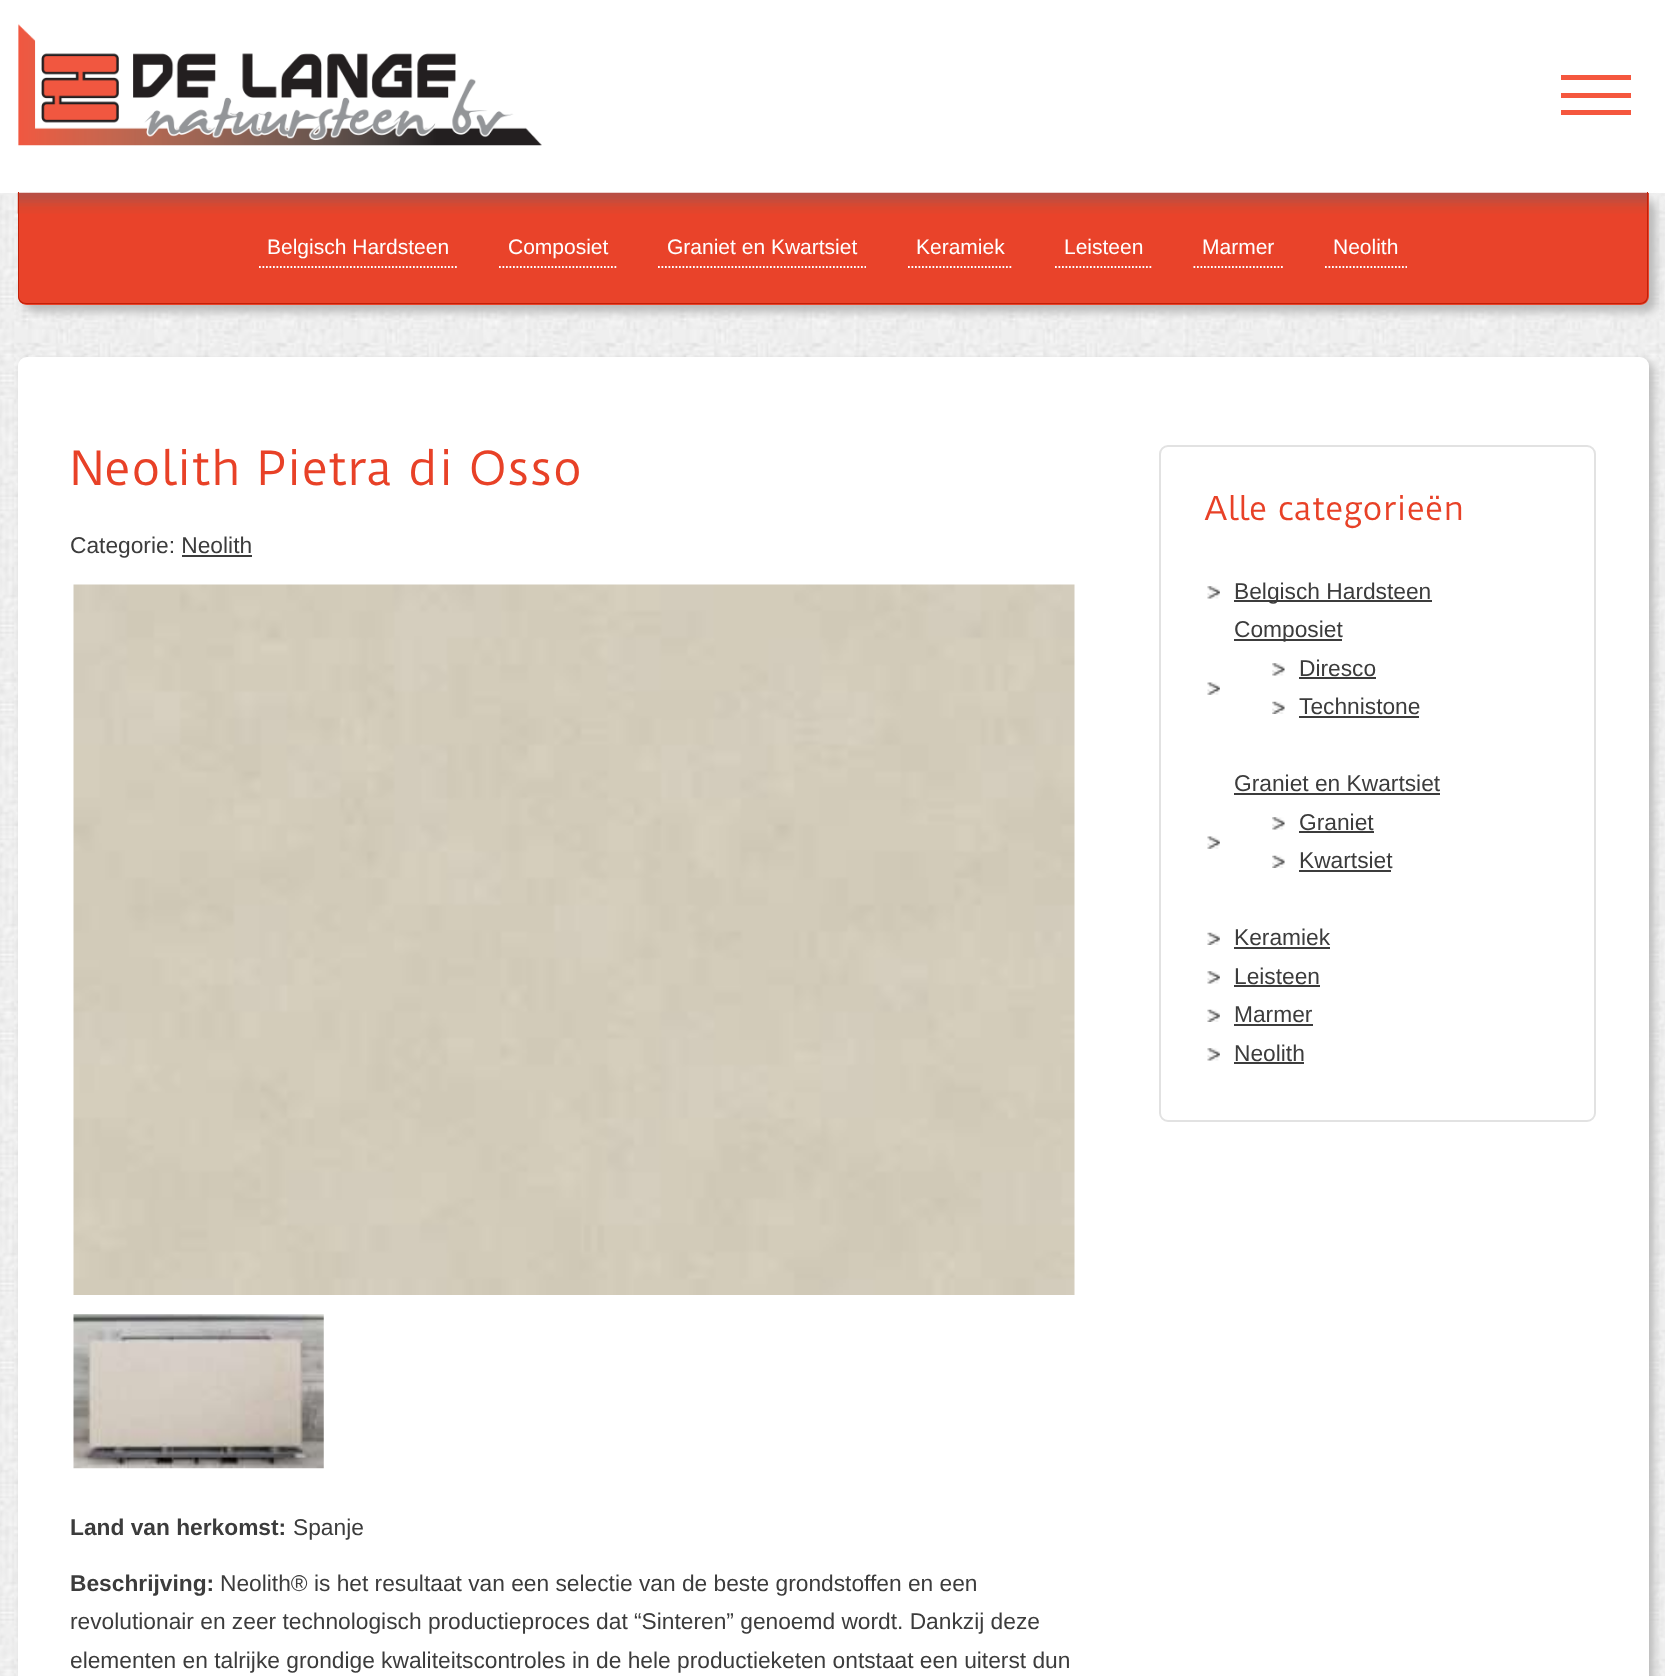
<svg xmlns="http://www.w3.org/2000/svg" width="1665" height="1676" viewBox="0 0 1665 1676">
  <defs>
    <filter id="blur1" x="-50%" y="-200%" width="200%" height="500%"><feGaussianBlur stdDeviation="4.5"/></filter>
  </defs>
  <rect width="100%" height="100%" fill="#ffffff"/>
  <image x="0" y="193" width="1665" height="1483" href="img1.png"/>
  <image x="18" y="24" width="524" height="122" href="img2.png"/>
  <rect x="1561" y="75" width="70" height="5" fill="#f5573e"/>
  <rect x="1561" y="93" width="70" height="5" fill="#f5573e"/>
  <rect x="1561" y="110" width="70" height="5" fill="#f5573e"/>
  <rect x="25" y="200" width="1631" height="112" rx="9" fill="#bbbbbb" filter="url(#blur1)"/>
  <path d="M18 193H1649V296C1649 301 1645 305 1640 305H27C22 305 18 301 18 296Z" fill="#e9432a"/>
  <image x="17" y="192" width="1632" height="22" href="img3.png"/>
  <path d="M18 192H1648V296C1648 301 1645 304 1640 304H26C21 304 18 301 18 296ZM19 192H1647V296C1647 300 1644 303 1640 303H26C22 303 19 300 19 296Z" fill="#c22008" fill-rule="evenodd"/>
  <path d="M259 267H458.5" fill="none" stroke="#ffffff" stroke-width="1.8" stroke-dasharray="1.75 1.75"/>
  <text x="267" y="254" font-family="Liberation Sans" font-size="21" fill="#ffffff">Belgisch Hardsteen</text>
  <path d="M499 267H618" fill="none" stroke="#ffffff" stroke-width="1.8" stroke-dasharray="1.75 1.75"/>
  <text x="508" y="254" font-family="Liberation Sans" font-size="21" fill="#ffffff">Composiet</text>
  <path d="M658 267H866" fill="none" stroke="#ffffff" stroke-width="1.8" stroke-dasharray="1.75 1.75"/>
  <text x="667" y="254" font-family="Liberation Sans" font-size="21" fill="#ffffff">Graniet en Kwartsiet</text>
  <path d="M908 267H1013" fill="none" stroke="#ffffff" stroke-width="1.8" stroke-dasharray="1.75 1.75"/>
  <text x="916" y="254" font-family="Liberation Sans" font-size="21" fill="#ffffff">Keramiek</text>
  <path d="M1055 267H1151.5" fill="none" stroke="#ffffff" stroke-width="1.8" stroke-dasharray="1.75 1.75"/>
  <text x="1064" y="254" font-family="Liberation Sans" font-size="21" fill="#ffffff">Leisteen</text>
  <path d="M1193.5 267H1283" fill="none" stroke="#ffffff" stroke-width="1.8" stroke-dasharray="1.75 1.75"/>
  <text x="1202" y="254" font-family="Liberation Sans" font-size="21" fill="#ffffff">Marmer</text>
  <path d="M1325 267H1407" fill="none" stroke="#ffffff" stroke-width="1.8" stroke-dasharray="1.75 1.75"/>
  <text x="1333" y="254" font-family="Liberation Sans" font-size="21" fill="#ffffff">Neolith</text>
  <rect x="23" y="362" width="1631" height="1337" rx="9" fill="#bbbbbb" filter="url(#blur1)"/>
  <rect x="18" y="357" width="1631" height="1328" rx="9" fill="#ffffff"/>
  <text x="70" y="485" font-family="Duru Sans" font-size="45.5" fill="#e84127">Neolith Pietra di Osso</text>
  <text x="70" y="553" font-family="Liberation Sans" font-size="22.75" fill="#3c3c3c">Categorie: Neolith</text>
  <rect x="182" y="555" width="70" height="2" fill="#3c3c3c"/>
  <image x="73" y="584" width="1002" height="711" href="img4.png"/>
  <image x="73" y="1314" width="251" height="155" href="img5.png"/>
  <text x="70" y="1535" font-family="Liberation Sans" font-size="22.75" font-weight="bold" fill="#3c3c3c">Land van herkomst:</text>
  <text x="293" y="1535" font-family="Liberation Sans" font-size="22.75" fill="#3c3c3c">Spanje</text>
  <text x="70" y="1591" font-family="Liberation Sans" font-size="22.75" font-weight="bold" fill="#3c3c3c">Beschrijving:</text>
  <text x="220" y="1591" font-family="Liberation Sans" font-size="22.75" fill="#3c3c3c">Neolith® is het resultaat van een selectie van de beste grondstoffen en een</text>
  <text x="70" y="1629" font-family="Liberation Sans" font-size="22.75" fill="#3c3c3c">revolutionair en zeer technologisch productieproces dat “Sinteren” genoemd wordt. Dankzij deze</text>
  <text x="70" y="1668" font-family="Liberation Sans" font-size="22.75" fill="#3c3c3c">elementen en talrijke grondige kwaliteitscontroles in de hele productieketen ontstaat een uiterst dun</text>
  <rect x="1160" y="446" width="435" height="675" rx="8" fill="none" stroke="#e2e2e2" stroke-width="2"/>
  <text x="1204" y="520" font-family="Duru Sans" font-size="31.5" fill="#e84127">Alle categorieën</text>
  <image x="1207" y="586" width="13" height="13" href="img6.png"/>
  <rect x="1234" y="600" width="198" height="2" fill="#3c3c3c"/>
  <text x="1234" y="599" font-family="Liberation Sans" font-size="22.75" fill="#3c3c3c">Belgisch Hardsteen</text>
  <image x="1207" y="682" width="13" height="13" href="img7.png"/>
  <rect x="1234" y="639" width="108" height="2" fill="#3c3c3c"/>
  <text x="1234" y="637" font-family="Liberation Sans" font-size="22.75" fill="#3c3c3c">Composiet</text>
  <image x="1272" y="663" width="13" height="13" href="img8.png"/>
  <text x="1299" y="676" font-family="Liberation Sans" font-size="22.75" fill="#3c3c3c">Diresco</text>
  <rect x="1299" y="677" width="77" height="2" fill="#3c3c3c"/>
  <image x="1272" y="701" width="13" height="13" href="img9.png"/>
  <text x="1299" y="714" font-family="Liberation Sans" font-size="22.75" fill="#3c3c3c">Technistone</text>
  <rect x="1299" y="716" width="120" height="2" fill="#3c3c3c"/>
  <image x="1207" y="836" width="13" height="13" href="img7.png"/>
  <text x="1234" y="791" font-family="Liberation Sans" font-size="22.75" fill="#3c3c3c">Graniet en Kwartsiet</text>
  <rect x="1234" y="793" width="206" height="2" fill="#3c3c3c"/>
  <image x="1272" y="817" width="13" height="13" href="img8.png"/>
  <text x="1299" y="830" font-family="Liberation Sans" font-size="22.75" fill="#3c3c3c">Graniet</text>
  <rect x="1299" y="831" width="75" height="2" fill="#3c3c3c"/>
  <image x="1272" y="855" width="13" height="13" href="img9.png"/>
  <text x="1299" y="868" font-family="Liberation Sans" font-size="22.75" fill="#3c3c3c">Kwartsiet</text>
  <rect x="1299" y="870" width="92" height="2" fill="#3c3c3c"/>
  <image x="1207" y="932" width="13" height="13" href="img10.png"/>
  <text x="1234" y="945" font-family="Liberation Sans" font-size="22.75" fill="#3c3c3c">Keramiek</text>
  <rect x="1234" y="947" width="96" height="2" fill="#3c3c3c"/>
  <image x="1207" y="971" width="13" height="13" href="img6.png"/>
  <text x="1234" y="984" font-family="Liberation Sans" font-size="22.75" fill="#3c3c3c">Leisteen</text>
  <rect x="1234" y="985" width="86" height="2" fill="#3c3c3c"/>
  <image x="1207" y="1009" width="13" height="13" href="img10.png"/>
  <text x="1234" y="1022" font-family="Liberation Sans" font-size="22.75" fill="#3c3c3c">Marmer</text>
  <rect x="1234" y="1024" width="79" height="2" fill="#3c3c3c"/>
  <image x="1207" y="1048" width="13" height="13" href="img6.png"/>
  <text x="1234" y="1061" font-family="Liberation Sans" font-size="22.75" fill="#3c3c3c">Neolith</text>
  <rect x="1234" y="1062" width="70" height="2" fill="#3c3c3c"/>
</svg>
